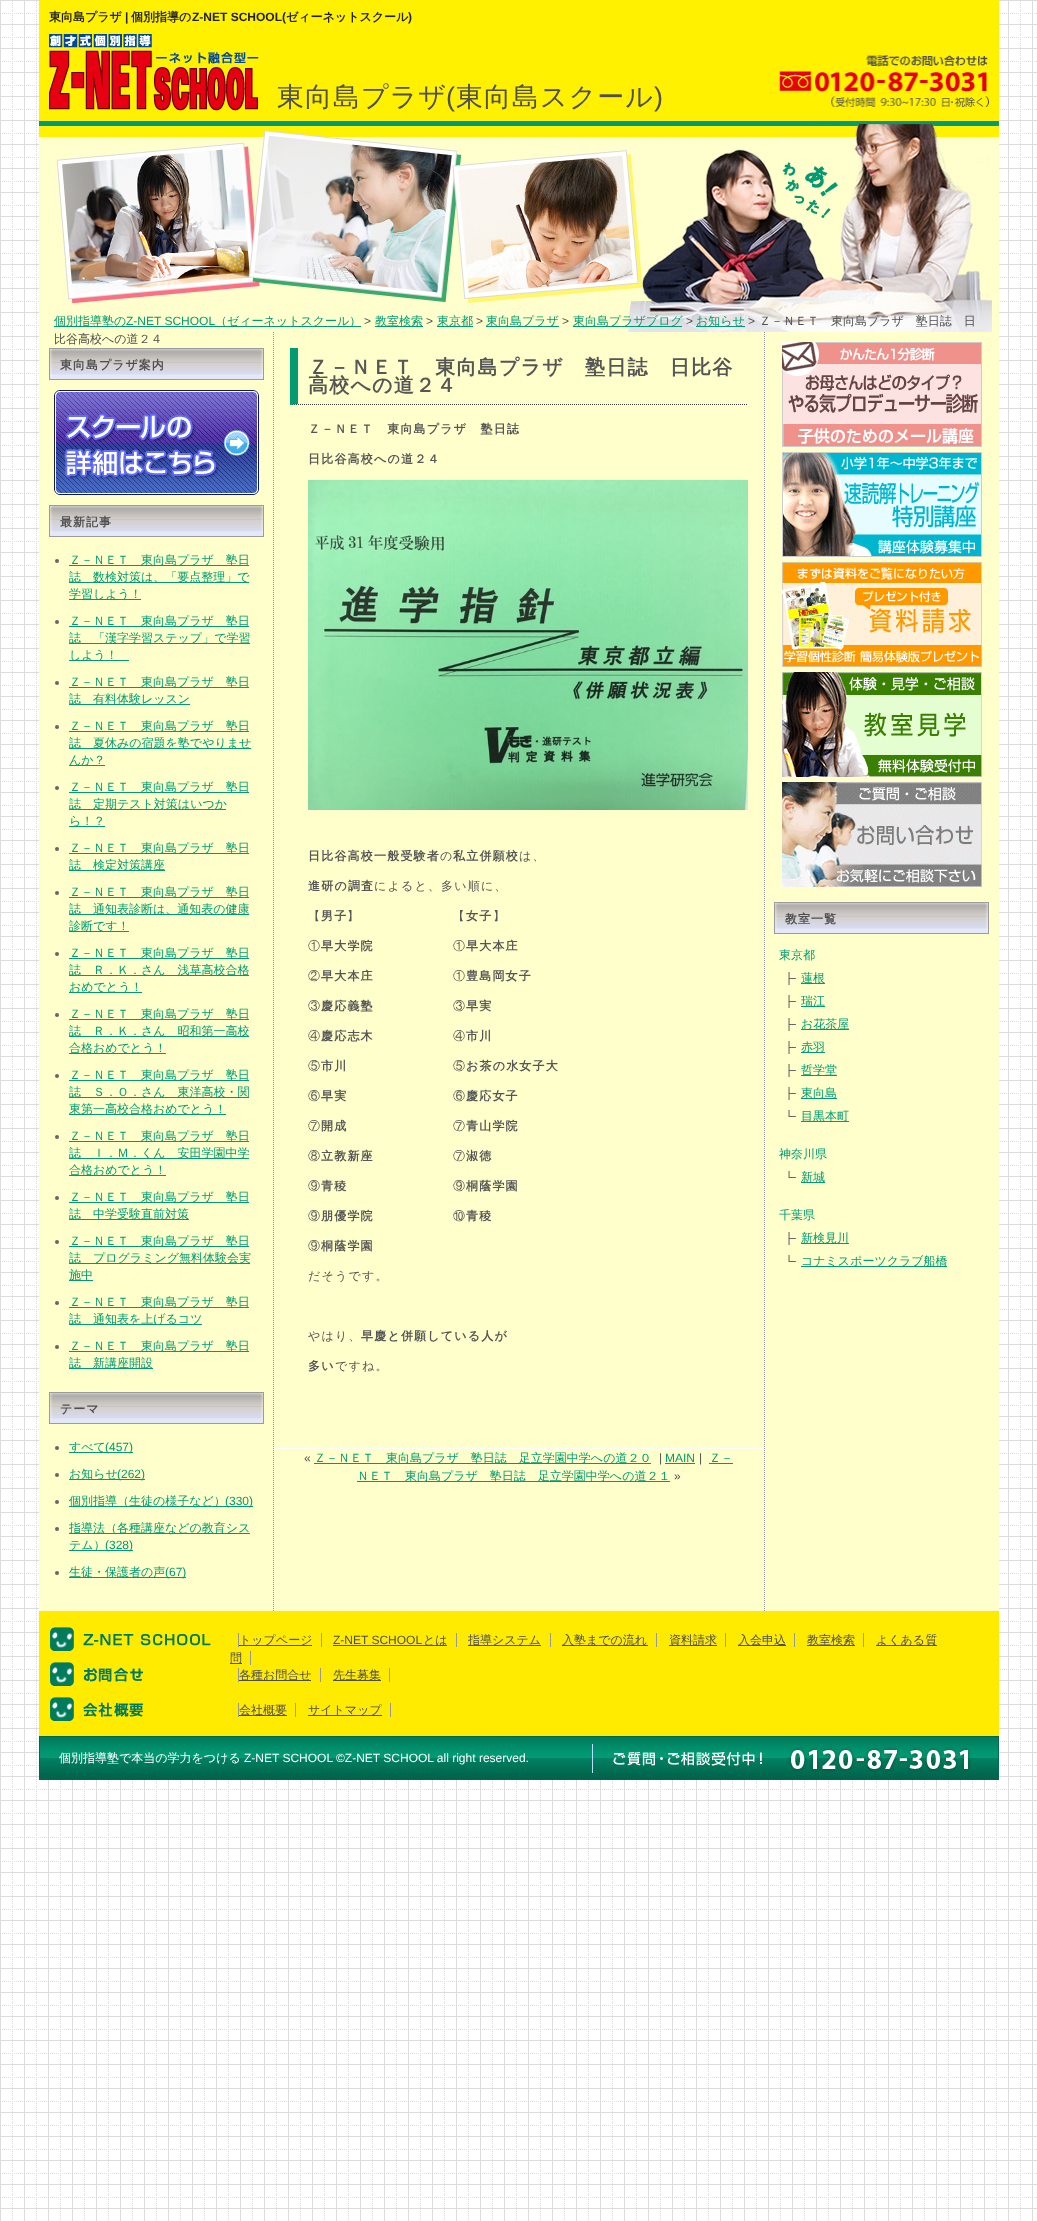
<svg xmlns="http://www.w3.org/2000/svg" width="1037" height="2221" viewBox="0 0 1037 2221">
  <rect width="100%" height="100%" fill="#ffffff"/>
  <image x="0" y="0" width="1037" height="2221" href="img1.png"/>
  <rect x="39" y="0" width="960" height="34" fill="#fff100"/>
  <text x="49" y="21" font-family="WenQuanYi Zen Hei" font-size="12" font-weight="bold" fill="#212121">東向島プラザ</text>
  <text x="125" y="21" font-family="Liberation Sans" font-size="12" font-weight="bold" fill="#212121">|</text>
  <text x="131" y="21" font-family="WenQuanYi Zen Hei" font-size="12" font-weight="bold" fill="#212121">個別指導の</text>
  <text x="192" y="21" font-family="Liberation Sans" font-size="12" font-weight="bold" fill="#212121">Z-NET SCHOOL(</text>
  <text x="286" y="21" font-family="WenQuanYi Zen Hei" font-size="12" font-weight="bold" fill="#212121">ゼィーネットスクール</text>
  <text x="408" y="21" font-family="Liberation Sans" font-size="12" font-weight="bold" fill="#212121">)</text>
  <image x="39" y="34" width="960" height="298" href="img2.png"/>
  <image x="49" y="34" width="210" height="77" href="img3.png"/>
  <text x="277" y="106" font-family="WenQuanYi Zen Hei" font-size="27" font-weight="500" letter-spacing="1" fill="#4f4f4f">東向島プラザ</text>
  <text x="446" y="106" font-family="Liberation Sans" font-size="27" letter-spacing="1" fill="#4f4f4f">(</text>
  <text x="456" y="106" font-family="WenQuanYi Zen Hei" font-size="27" font-weight="500" letter-spacing="1" fill="#4f4f4f">東向島スクール</text>
  <text x="654" y="106" font-family="Liberation Sans" font-size="27" letter-spacing="1" fill="#4f4f4f">)</text>
  <image x="779" y="55" width="210" height="52" href="img4.png"/>
  <rect x="54" y="326" width="307" height="1" fill="#009b74"/>
  <text x="54" y="325" font-family="WenQuanYi Zen Hei" font-size="12" font-weight="500" fill="#009b74">個別指導塾の</text>
  <text x="126" y="325" font-family="Liberation Sans" font-size="12" fill="#009b74">Z-NET SCHOOL</text>
  <text x="215" y="325" font-family="WenQuanYi Zen Hei" font-size="12" font-weight="500" fill="#009b74">（ゼィーネットスクール）</text>
  <text x="364" y="325" font-family="Liberation Sans" font-size="12" fill="#4f4f4f">&gt;</text>
  <rect x="375" y="326" width="48" height="1" fill="#009b74"/>
  <text x="375" y="325" font-family="WenQuanYi Zen Hei" font-size="12" font-weight="500" fill="#009b74">教室検索</text>
  <text x="426" y="325" font-family="Liberation Sans" font-size="12" fill="#4f4f4f">&gt;</text>
  <rect x="437" y="326" width="36" height="1" fill="#009b74"/>
  <text x="437" y="325" font-family="WenQuanYi Zen Hei" font-size="12" font-weight="500" fill="#009b74">東京都</text>
  <text x="476" y="325" font-family="Liberation Sans" font-size="12" fill="#4f4f4f">&gt;</text>
  <rect x="486" y="326" width="73" height="1" fill="#009b74"/>
  <text x="486" y="325" font-family="WenQuanYi Zen Hei" font-size="12" font-weight="500" fill="#009b74">東向島プラザ</text>
  <text x="562" y="325" font-family="Liberation Sans" font-size="12" fill="#4f4f4f">&gt;</text>
  <rect x="573" y="326" width="109" height="1" fill="#009b74"/>
  <text x="573" y="325" font-family="WenQuanYi Zen Hei" font-size="12" font-weight="500" fill="#009b74">東向島プラザブログ</text>
  <text x="686" y="325" font-family="Liberation Sans" font-size="12" fill="#4f4f4f">&gt;</text>
  <rect x="696" y="326" width="49" height="1" fill="#009b74"/>
  <text x="696" y="325" font-family="WenQuanYi Zen Hei" font-size="12" font-weight="500" fill="#009b74">お知らせ</text>
  <text x="748" y="325" font-family="Liberation Sans" font-size="12" fill="#4f4f4f">&gt;</text>
  <text x="759" y="325" font-family="WenQuanYi Zen Hei" font-size="12" font-weight="500" fill="#4f4f4f">Ｚ－ＮＥＴ　東向島プラザ　塾日誌　日</text>
  <image x="39" y="332" width="960" height="1279" href="img5.png"/>
  <text x="54" y="343" font-family="WenQuanYi Zen Hei" font-size="12" font-weight="500" fill="#4f4f4f">比谷高校への道２４</text>
  <rect x="50" y="376" width="213" height="3" fill="#e4e9f9"/>
  <image x="50" y="349" width="213" height="27" href="img6.png"/>
  <rect x="49.5" y="348.5" width="214" height="31" fill="none" stroke="#9c9c9c"/>
  <text x="60" y="369" font-family="WenQuanYi Zen Hei" font-size="12" font-weight="bold" letter-spacing="1" fill="#4f4f4f">東向島プラザ案内</text>
  <image x="54" y="390" width="205" height="105" href="img7.png"/>
  <rect x="50" y="533" width="213" height="3" fill="#e4e9f9"/>
  <image x="50" y="506" width="213" height="27" href="img6.png"/>
  <rect x="49.5" y="505.5" width="214" height="31" fill="none" stroke="#9c9c9c"/>
  <text x="60" y="526" font-family="WenQuanYi Zen Hei" font-size="12" font-weight="bold" letter-spacing="1" fill="#4f4f4f">最新記事</text>
  <circle cx="57" cy="561" r="2" fill="#666666"/>
  <rect x="69" y="565" width="180" height="1" fill="#009b74"/>
  <text x="69" y="564" font-family="WenQuanYi Zen Hei" font-size="12" font-weight="500" fill="#009b74">Ｚ－ＮＥＴ　東向島プラザ　塾日</text>
  <rect x="69" y="582" width="180" height="1" fill="#009b74"/>
  <text x="69" y="581" font-family="WenQuanYi Zen Hei" font-size="12" font-weight="500" fill="#009b74">誌　数検対策は、「要点整理」で</text>
  <rect x="69" y="599" width="72" height="1" fill="#009b74"/>
  <text x="69" y="598" font-family="WenQuanYi Zen Hei" font-size="12" font-weight="500" fill="#009b74">学習しよう！</text>
  <circle cx="57" cy="622" r="2" fill="#666666"/>
  <rect x="69" y="626" width="180" height="1" fill="#009b74"/>
  <text x="69" y="625" font-family="WenQuanYi Zen Hei" font-size="12" font-weight="500" fill="#009b74">Ｚ－ＮＥＴ　東向島プラザ　塾日</text>
  <rect x="69" y="643" width="181" height="1" fill="#009b74"/>
  <text x="69" y="642" font-family="WenQuanYi Zen Hei" font-size="12" font-weight="500" fill="#009b74">誌　「漢字学習ステップ」で学習</text>
  <rect x="69" y="660" width="60" height="1" fill="#009b74"/>
  <text x="69" y="659" font-family="WenQuanYi Zen Hei" font-size="12" font-weight="500" fill="#009b74">しよう！</text>
  <circle cx="57" cy="683" r="2" fill="#666666"/>
  <rect x="69" y="687" width="180" height="1" fill="#009b74"/>
  <text x="69" y="686" font-family="WenQuanYi Zen Hei" font-size="12" font-weight="500" fill="#009b74">Ｚ－ＮＥＴ　東向島プラザ　塾日</text>
  <rect x="69" y="704" width="121" height="1" fill="#009b74"/>
  <text x="69" y="703" font-family="WenQuanYi Zen Hei" font-size="12" font-weight="500" fill="#009b74">誌　有料体験レッスン</text>
  <circle cx="57" cy="727" r="2" fill="#666666"/>
  <rect x="69" y="731" width="180" height="1" fill="#009b74"/>
  <text x="69" y="730" font-family="WenQuanYi Zen Hei" font-size="12" font-weight="500" fill="#009b74">Ｚ－ＮＥＴ　東向島プラザ　塾日</text>
  <rect x="69" y="748" width="182" height="1" fill="#009b74"/>
  <text x="69" y="747" font-family="WenQuanYi Zen Hei" font-size="12" font-weight="500" fill="#009b74">誌　夏休みの宿題を塾でやりませ</text>
  <rect x="69" y="765" width="36" height="1" fill="#009b74"/>
  <text x="69" y="764" font-family="WenQuanYi Zen Hei" font-size="12" font-weight="500" fill="#009b74">んか？</text>
  <circle cx="57" cy="788" r="2" fill="#666666"/>
  <rect x="69" y="792" width="180" height="1" fill="#009b74"/>
  <text x="69" y="791" font-family="WenQuanYi Zen Hei" font-size="12" font-weight="500" fill="#009b74">Ｚ－ＮＥＴ　東向島プラザ　塾日</text>
  <rect x="69" y="809" width="157" height="1" fill="#009b74"/>
  <text x="69" y="808" font-family="WenQuanYi Zen Hei" font-size="12" font-weight="500" fill="#009b74">誌　定期テスト対策はいつか</text>
  <rect x="69" y="826" width="36" height="1" fill="#009b74"/>
  <text x="69" y="825" font-family="WenQuanYi Zen Hei" font-size="12" font-weight="500" fill="#009b74">ら！？</text>
  <circle cx="57" cy="849" r="2" fill="#666666"/>
  <rect x="69" y="853" width="180" height="1" fill="#009b74"/>
  <text x="69" y="852" font-family="WenQuanYi Zen Hei" font-size="12" font-weight="500" fill="#009b74">Ｚ－ＮＥＴ　東向島プラザ　塾日</text>
  <rect x="69" y="870" width="96" height="1" fill="#009b74"/>
  <text x="69" y="869" font-family="WenQuanYi Zen Hei" font-size="12" font-weight="500" fill="#009b74">誌　検定対策講座</text>
  <circle cx="57" cy="893" r="2" fill="#666666"/>
  <rect x="69" y="897" width="180" height="1" fill="#009b74"/>
  <text x="69" y="896" font-family="WenQuanYi Zen Hei" font-size="12" font-weight="500" fill="#009b74">Ｚ－ＮＥＴ　東向島プラザ　塾日</text>
  <rect x="69" y="914" width="180" height="1" fill="#009b74"/>
  <text x="69" y="913" font-family="WenQuanYi Zen Hei" font-size="12" font-weight="500" fill="#009b74">誌　通知表診断は、通知表の健康</text>
  <rect x="69" y="931" width="60" height="1" fill="#009b74"/>
  <text x="69" y="930" font-family="WenQuanYi Zen Hei" font-size="12" font-weight="500" fill="#009b74">診断です！</text>
  <circle cx="57" cy="954" r="2" fill="#666666"/>
  <rect x="69" y="958" width="180" height="1" fill="#009b74"/>
  <text x="69" y="957" font-family="WenQuanYi Zen Hei" font-size="12" font-weight="500" fill="#009b74">Ｚ－ＮＥＴ　東向島プラザ　塾日</text>
  <rect x="69" y="975" width="180" height="1" fill="#009b74"/>
  <text x="69" y="974" font-family="WenQuanYi Zen Hei" font-size="12" font-weight="500" fill="#009b74">誌　Ｒ．Ｋ．さん　浅草高校合格</text>
  <rect x="69" y="992" width="73" height="1" fill="#009b74"/>
  <text x="69" y="991" font-family="WenQuanYi Zen Hei" font-size="12" font-weight="500" fill="#009b74">おめでとう！</text>
  <circle cx="57" cy="1015" r="2" fill="#666666"/>
  <rect x="69" y="1019" width="180" height="1" fill="#009b74"/>
  <text x="69" y="1018" font-family="WenQuanYi Zen Hei" font-size="12" font-weight="500" fill="#009b74">Ｚ－ＮＥＴ　東向島プラザ　塾日</text>
  <rect x="69" y="1036" width="180" height="1" fill="#009b74"/>
  <text x="69" y="1035" font-family="WenQuanYi Zen Hei" font-size="12" font-weight="500" fill="#009b74">誌　Ｒ．Ｋ．さん　昭和第一高校</text>
  <rect x="69" y="1053" width="97" height="1" fill="#009b74"/>
  <text x="69" y="1052" font-family="WenQuanYi Zen Hei" font-size="12" font-weight="500" fill="#009b74">合格おめでとう！</text>
  <circle cx="57" cy="1076" r="2" fill="#666666"/>
  <rect x="69" y="1080" width="180" height="1" fill="#009b74"/>
  <text x="69" y="1079" font-family="WenQuanYi Zen Hei" font-size="12" font-weight="500" fill="#009b74">Ｚ－ＮＥＴ　東向島プラザ　塾日</text>
  <rect x="69" y="1097" width="180" height="1" fill="#009b74"/>
  <text x="69" y="1096" font-family="WenQuanYi Zen Hei" font-size="12" font-weight="500" fill="#009b74">誌　Ｓ．Ｏ．さん　東洋高校・関</text>
  <rect x="69" y="1114" width="157" height="1" fill="#009b74"/>
  <text x="69" y="1113" font-family="WenQuanYi Zen Hei" font-size="12" font-weight="500" fill="#009b74">東第一高校合格おめでとう！</text>
  <circle cx="57" cy="1137" r="2" fill="#666666"/>
  <rect x="69" y="1141" width="180" height="1" fill="#009b74"/>
  <text x="69" y="1140" font-family="WenQuanYi Zen Hei" font-size="12" font-weight="500" fill="#009b74">Ｚ－ＮＥＴ　東向島プラザ　塾日</text>
  <rect x="69" y="1158" width="180" height="1" fill="#009b74"/>
  <text x="69" y="1157" font-family="WenQuanYi Zen Hei" font-size="12" font-weight="500" fill="#009b74">誌　Ｉ．Ｍ．くん　安田学園中学</text>
  <rect x="69" y="1175" width="97" height="1" fill="#009b74"/>
  <text x="69" y="1174" font-family="WenQuanYi Zen Hei" font-size="12" font-weight="500" fill="#009b74">合格おめでとう！</text>
  <circle cx="57" cy="1198" r="2" fill="#666666"/>
  <rect x="69" y="1202" width="180" height="1" fill="#009b74"/>
  <text x="69" y="1201" font-family="WenQuanYi Zen Hei" font-size="12" font-weight="500" fill="#009b74">Ｚ－ＮＥＴ　東向島プラザ　塾日</text>
  <rect x="69" y="1219" width="120" height="1" fill="#009b74"/>
  <text x="69" y="1218" font-family="WenQuanYi Zen Hei" font-size="12" font-weight="500" fill="#009b74">誌　中学受験直前対策</text>
  <circle cx="57" cy="1242" r="2" fill="#666666"/>
  <rect x="69" y="1246" width="180" height="1" fill="#009b74"/>
  <text x="69" y="1245" font-family="WenQuanYi Zen Hei" font-size="12" font-weight="500" fill="#009b74">Ｚ－ＮＥＴ　東向島プラザ　塾日</text>
  <rect x="69" y="1263" width="181" height="1" fill="#009b74"/>
  <text x="69" y="1262" font-family="WenQuanYi Zen Hei" font-size="12" font-weight="500" fill="#009b74">誌　プログラミング無料体験会実</text>
  <rect x="69" y="1280" width="24" height="1" fill="#009b74"/>
  <text x="69" y="1279" font-family="WenQuanYi Zen Hei" font-size="12" font-weight="500" fill="#009b74">施中</text>
  <circle cx="57" cy="1303" r="2" fill="#666666"/>
  <rect x="69" y="1307" width="180" height="1" fill="#009b74"/>
  <text x="69" y="1306" font-family="WenQuanYi Zen Hei" font-size="12" font-weight="500" fill="#009b74">Ｚ－ＮＥＴ　東向島プラザ　塾日</text>
  <rect x="69" y="1324" width="133" height="1" fill="#009b74"/>
  <text x="69" y="1323" font-family="WenQuanYi Zen Hei" font-size="12" font-weight="500" fill="#009b74">誌　通知表を上げるコツ</text>
  <circle cx="57" cy="1347" r="2" fill="#666666"/>
  <rect x="69" y="1351" width="180" height="1" fill="#009b74"/>
  <text x="69" y="1350" font-family="WenQuanYi Zen Hei" font-size="12" font-weight="500" fill="#009b74">Ｚ－ＮＥＴ　東向島プラザ　塾日</text>
  <rect x="69" y="1368" width="84" height="1" fill="#009b74"/>
  <text x="69" y="1367" font-family="WenQuanYi Zen Hei" font-size="12" font-weight="500" fill="#009b74">誌　新講座開設</text>
  <rect x="50" y="1420" width="213" height="3" fill="#e4e9f9"/>
  <image x="50" y="1393" width="213" height="27" href="img6.png"/>
  <rect x="49.5" y="1392.5" width="214" height="31" fill="none" stroke="#9c9c9c"/>
  <text x="60" y="1413" font-family="WenQuanYi Zen Hei" font-size="12" font-weight="bold" letter-spacing="1" fill="#4f4f4f">テーマ</text>
  <circle cx="57" cy="1448" r="2" fill="#666666"/>
  <rect x="69" y="1452" width="64" height="1" fill="#009b74"/>
  <text x="69" y="1451" font-family="WenQuanYi Zen Hei" font-size="12" font-weight="500" fill="#009b74">すべて</text>
  <text x="105" y="1451" font-family="Liberation Sans" font-size="12" fill="#009b74">(457)</text>
  <circle cx="57" cy="1475" r="2" fill="#666666"/>
  <rect x="69" y="1479" width="76" height="1" fill="#009b74"/>
  <text x="69" y="1478" font-family="WenQuanYi Zen Hei" font-size="12" font-weight="500" fill="#009b74">お知らせ</text>
  <text x="117" y="1478" font-family="Liberation Sans" font-size="12" fill="#009b74">(262)</text>
  <circle cx="57" cy="1502" r="2" fill="#666666"/>
  <rect x="69" y="1506" width="184" height="1" fill="#009b74"/>
  <text x="69" y="1505" font-family="WenQuanYi Zen Hei" font-size="12" font-weight="500" fill="#009b74">個別指導（生徒の様子など）</text>
  <text x="225" y="1505" font-family="Liberation Sans" font-size="12" fill="#009b74">(330)</text>
  <circle cx="57" cy="1529" r="2" fill="#666666"/>
  <rect x="69" y="1533" width="181" height="1" fill="#009b74"/>
  <text x="69" y="1532" font-family="WenQuanYi Zen Hei" font-size="12" font-weight="500" fill="#009b74">指導法（各種講座などの教育シス</text>
  <rect x="69" y="1550" width="64" height="1" fill="#009b74"/>
  <text x="69" y="1549" font-family="WenQuanYi Zen Hei" font-size="12" font-weight="500" fill="#009b74">テム）</text>
  <text x="105" y="1549" font-family="Liberation Sans" font-size="12" fill="#009b74">(328)</text>
  <circle cx="57" cy="1573" r="2" fill="#666666"/>
  <rect x="69" y="1577" width="117" height="1" fill="#009b74"/>
  <text x="69" y="1576" font-family="WenQuanYi Zen Hei" font-size="12" font-weight="500" fill="#009b74">生徒・保護者の声</text>
  <text x="165" y="1576" font-family="Liberation Sans" font-size="12" fill="#009b74">(67)</text>
  <path d="M274 1448.5H764" fill="none" stroke="#ffffff" stroke-dasharray="1 1"/>
  <path d="M290 404.5H748" fill="none" stroke="#393939" stroke-dasharray="1 1"/>
  <path d="M290 405V348H298V404Z" fill="#009b73"/>
  <text x="308" y="374" font-family="WenQuanYi Zen Hei" font-size="20" font-weight="bold" letter-spacing="1.2" fill="#565656">Ｚ－ＮＥＴ　東向島プラザ　塾日誌　日比谷</text>
  <text x="308" y="392" font-family="WenQuanYi Zen Hei" font-size="20" font-weight="bold" letter-spacing="1.2" fill="#565656">高校への道２４</text>
  <text x="308" y="433" font-family="WenQuanYi Zen Hei" font-size="12" font-weight="bold" letter-spacing="1.2" fill="#565656">Ｚ－ＮＥＴ　東向島プラザ　塾日誌</text>
  <text x="308" y="463" font-family="WenQuanYi Zen Hei" font-size="12" font-weight="bold" letter-spacing="1.2" fill="#565656">日比谷高校への道２４</text>
  <image x="308" y="480" width="440" height="330" href="img8.png"/>
  <text x="308" y="860" font-family="WenQuanYi Zen Hei" font-size="12" font-weight="bold" letter-spacing="1.2" fill="#565656">日比谷高校一般受験者</text>
  <text x="440" y="860" font-family="WenQuanYi Zen Hei" font-size="12" font-weight="500" letter-spacing="1.2" fill="#565656">の</text>
  <text x="453" y="860" font-family="WenQuanYi Zen Hei" font-size="12" font-weight="bold" letter-spacing="1.2" fill="#565656">私立併願校</text>
  <text x="519" y="860" font-family="WenQuanYi Zen Hei" font-size="12" font-weight="500" letter-spacing="1.2" fill="#565656">は、</text>
  <text x="308" y="890" font-family="WenQuanYi Zen Hei" font-size="12" font-weight="bold" letter-spacing="1.2" fill="#565656">進研の調査</text>
  <text x="374" y="890" font-family="WenQuanYi Zen Hei" font-size="12" font-weight="500" letter-spacing="1.2" fill="#565656">によると、多い順に、</text>
  <text x="308" y="920" font-family="WenQuanYi Zen Hei" font-size="12" font-weight="500" letter-spacing="1.2" fill="#565656">【</text>
  <text x="321" y="920" font-family="WenQuanYi Zen Hei" font-size="12" font-weight="bold" letter-spacing="1.2" fill="#565656">男子</text>
  <text x="347" y="920" font-family="WenQuanYi Zen Hei" font-size="12" font-weight="500" letter-spacing="1.2" fill="#565656">】　　　　　　　【</text>
  <text x="466" y="920" font-family="WenQuanYi Zen Hei" font-size="12" font-weight="bold" letter-spacing="1.2" fill="#565656">女子</text>
  <text x="493" y="920" font-family="WenQuanYi Zen Hei" font-size="12" font-weight="500" letter-spacing="1.2" fill="#565656">】</text>
  <text x="308" y="950" font-family="WenQuanYi Zen Hei" font-size="12" font-weight="500" letter-spacing="1.2" fill="#565656">①</text>
  <text x="321" y="950" font-family="WenQuanYi Zen Hei" font-size="12" font-weight="bold" letter-spacing="1.2" fill="#565656">早大学院</text>
  <text x="453" y="950" font-family="WenQuanYi Zen Hei" font-size="12" font-weight="500" letter-spacing="1.2" fill="#565656">①</text>
  <text x="466" y="950" font-family="WenQuanYi Zen Hei" font-size="12" font-weight="bold" letter-spacing="1.2" fill="#565656">早大本庄</text>
  <text x="308" y="980" font-family="WenQuanYi Zen Hei" font-size="12" font-weight="500" letter-spacing="1.2" fill="#565656">②</text>
  <text x="321" y="980" font-family="WenQuanYi Zen Hei" font-size="12" font-weight="bold" letter-spacing="1.2" fill="#565656">早大本庄</text>
  <text x="453" y="980" font-family="WenQuanYi Zen Hei" font-size="12" font-weight="500" letter-spacing="1.2" fill="#565656">①</text>
  <text x="466" y="980" font-family="WenQuanYi Zen Hei" font-size="12" font-weight="bold" letter-spacing="1.2" fill="#565656">豊島岡女子</text>
  <text x="308" y="1010" font-family="WenQuanYi Zen Hei" font-size="12" font-weight="500" letter-spacing="1.2" fill="#565656">③</text>
  <text x="321" y="1010" font-family="WenQuanYi Zen Hei" font-size="12" font-weight="bold" letter-spacing="1.2" fill="#565656">慶応義塾</text>
  <text x="453" y="1010" font-family="WenQuanYi Zen Hei" font-size="12" font-weight="500" letter-spacing="1.2" fill="#565656">③</text>
  <text x="466" y="1010" font-family="WenQuanYi Zen Hei" font-size="12" font-weight="bold" letter-spacing="1.2" fill="#565656">早実</text>
  <text x="308" y="1040" font-family="WenQuanYi Zen Hei" font-size="12" font-weight="500" letter-spacing="1.2" fill="#565656">④</text>
  <text x="321" y="1040" font-family="WenQuanYi Zen Hei" font-size="12" font-weight="bold" letter-spacing="1.2" fill="#565656">慶応志木</text>
  <text x="453" y="1040" font-family="WenQuanYi Zen Hei" font-size="12" font-weight="500" letter-spacing="1.2" fill="#565656">④</text>
  <text x="466" y="1040" font-family="WenQuanYi Zen Hei" font-size="12" font-weight="bold" letter-spacing="1.2" fill="#565656">市川</text>
  <text x="308" y="1070" font-family="WenQuanYi Zen Hei" font-size="12" font-weight="500" letter-spacing="1.2" fill="#565656">⑤</text>
  <text x="321" y="1070" font-family="WenQuanYi Zen Hei" font-size="12" font-weight="bold" letter-spacing="1.2" fill="#565656">市川</text>
  <text x="453" y="1070" font-family="WenQuanYi Zen Hei" font-size="12" font-weight="500" letter-spacing="1.2" fill="#565656">⑤</text>
  <text x="466" y="1070" font-family="WenQuanYi Zen Hei" font-size="12" font-weight="bold" letter-spacing="1.2" fill="#565656">お茶の水女子大</text>
  <text x="308" y="1100" font-family="WenQuanYi Zen Hei" font-size="12" font-weight="500" letter-spacing="1.2" fill="#565656">⑥</text>
  <text x="321" y="1100" font-family="WenQuanYi Zen Hei" font-size="12" font-weight="bold" letter-spacing="1.2" fill="#565656">早実</text>
  <text x="453" y="1100" font-family="WenQuanYi Zen Hei" font-size="12" font-weight="500" letter-spacing="1.2" fill="#565656">⑥</text>
  <text x="466" y="1100" font-family="WenQuanYi Zen Hei" font-size="12" font-weight="bold" letter-spacing="1.2" fill="#565656">慶応女子</text>
  <text x="308" y="1130" font-family="WenQuanYi Zen Hei" font-size="12" font-weight="500" letter-spacing="1.2" fill="#565656">⑦</text>
  <text x="321" y="1130" font-family="WenQuanYi Zen Hei" font-size="12" font-weight="bold" letter-spacing="1.2" fill="#565656">開成</text>
  <text x="453" y="1130" font-family="WenQuanYi Zen Hei" font-size="12" font-weight="500" letter-spacing="1.2" fill="#565656">⑦</text>
  <text x="466" y="1130" font-family="WenQuanYi Zen Hei" font-size="12" font-weight="bold" letter-spacing="1.2" fill="#565656">青山学院</text>
  <text x="308" y="1160" font-family="WenQuanYi Zen Hei" font-size="12" font-weight="500" letter-spacing="1.2" fill="#565656">⑧</text>
  <text x="321" y="1160" font-family="WenQuanYi Zen Hei" font-size="12" font-weight="bold" letter-spacing="1.2" fill="#565656">立教新座</text>
  <text x="453" y="1160" font-family="WenQuanYi Zen Hei" font-size="12" font-weight="500" letter-spacing="1.2" fill="#565656">⑦</text>
  <text x="466" y="1160" font-family="WenQuanYi Zen Hei" font-size="12" font-weight="bold" letter-spacing="1.2" fill="#565656">淑徳</text>
  <text x="308" y="1190" font-family="WenQuanYi Zen Hei" font-size="12" font-weight="500" letter-spacing="1.2" fill="#565656">⑨</text>
  <text x="321" y="1190" font-family="WenQuanYi Zen Hei" font-size="12" font-weight="bold" letter-spacing="1.2" fill="#565656">青稜</text>
  <text x="453" y="1190" font-family="WenQuanYi Zen Hei" font-size="12" font-weight="500" letter-spacing="1.2" fill="#565656">⑨</text>
  <text x="466" y="1190" font-family="WenQuanYi Zen Hei" font-size="12" font-weight="bold" letter-spacing="1.2" fill="#565656">桐蔭学園</text>
  <text x="308" y="1220" font-family="WenQuanYi Zen Hei" font-size="12" font-weight="500" letter-spacing="1.2" fill="#565656">⑨</text>
  <text x="321" y="1220" font-family="WenQuanYi Zen Hei" font-size="12" font-weight="bold" letter-spacing="1.2" fill="#565656">朋優学院</text>
  <text x="453" y="1220" font-family="WenQuanYi Zen Hei" font-size="12" font-weight="500" letter-spacing="1.2" fill="#565656">⑩</text>
  <text x="466" y="1220" font-family="WenQuanYi Zen Hei" font-size="12" font-weight="bold" letter-spacing="1.2" fill="#565656">青稜</text>
  <text x="308" y="1250" font-family="WenQuanYi Zen Hei" font-size="12" font-weight="500" letter-spacing="1.2" fill="#565656">⑨</text>
  <text x="321" y="1250" font-family="WenQuanYi Zen Hei" font-size="12" font-weight="bold" letter-spacing="1.2" fill="#565656">桐蔭学園</text>
  <text x="308" y="1280" font-family="WenQuanYi Zen Hei" font-size="12" font-weight="500" letter-spacing="1.2" fill="#565656">だそうです。</text>
  <text x="308" y="1340" font-family="WenQuanYi Zen Hei" font-size="12" font-weight="500" letter-spacing="1.2" fill="#565656">やはり、</text>
  <text x="361" y="1340" font-family="WenQuanYi Zen Hei" font-size="12" font-weight="bold" letter-spacing="1.2" fill="#565656">早慶と併願している人が</text>
  <text x="308" y="1370" font-family="WenQuanYi Zen Hei" font-size="12" font-weight="bold" letter-spacing="1.2" fill="#565656">多い</text>
  <text x="335" y="1370" font-family="WenQuanYi Zen Hei" font-size="12" font-weight="500" letter-spacing="1.2" fill="#565656">ですね。</text>
  <text x="304" y="1462" font-family="Liberation Sans" font-size="12" fill="#4f4f4f">«</text>
  <rect x="314" y="1463" width="337" height="1" fill="#009b74"/>
  <text x="314" y="1462" font-family="WenQuanYi Zen Hei" font-size="12" font-weight="500" fill="#009b74">Ｚ－ＮＥＴ　東向島プラザ　塾日誌　足立学園中学への道２０</text>
  <text x="659" y="1462" font-family="Liberation Sans" font-size="12" fill="#4f4f4f">|</text>
  <text x="665" y="1462" font-family="Liberation Sans" font-size="12" fill="#009b74">MAIN</text>
  <rect x="665" y="1463" width="30" height="1" fill="#009b74"/>
  <text x="699" y="1462" font-family="Liberation Sans" font-size="12" fill="#4f4f4f">|</text>
  <text x="709" y="1462" font-family="WenQuanYi Zen Hei" font-size="12" font-weight="500" fill="#009b74">Ｚ－</text>
  <rect x="709" y="1463" width="24" height="1" fill="#009b74"/>
  <rect x="357" y="1481" width="313" height="1" fill="#009b74"/>
  <text x="357" y="1480" font-family="WenQuanYi Zen Hei" font-size="12" font-weight="500" fill="#009b74">ＮＥＴ　東向島プラザ　塾日誌　足立学園中学への道２１</text>
  <text x="674" y="1480" font-family="Liberation Sans" font-size="12" fill="#4f4f4f">»</text>
  <image x="782" y="342" width="200" height="105" href="img9.png"/>
  <image x="782" y="452" width="200" height="105" href="img10.png"/>
  <image x="782" y="562" width="200" height="105" href="img11.png"/>
  <image x="782" y="672" width="200" height="105" href="img12.png"/>
  <image x="782" y="782" width="200" height="105" href="img13.png"/>
  <rect x="775" y="930" width="213" height="3" fill="#e4e9f9"/>
  <image x="775" y="903" width="213" height="27" href="img6.png"/>
  <rect x="774.5" y="902.5" width="214" height="31" fill="none" stroke="#9c9c9c"/>
  <text x="785" y="923" font-family="WenQuanYi Zen Hei" font-size="12" font-weight="bold" letter-spacing="1" fill="#4f4f4f">教室一覧</text>
  <text x="779" y="959" font-family="WenQuanYi Zen Hei" font-size="12" font-weight="500" fill="#009b74">東京都</text>
  <image x="788" y="972" width="8" height="13" href="img14.png"/>
  <rect x="801" y="983" width="24" height="1" fill="#009b74"/>
  <text x="801" y="982" font-family="WenQuanYi Zen Hei" font-size="12" font-weight="500" fill="#009b74">蓮根</text>
  <image x="788" y="995" width="8" height="13" href="img14.png"/>
  <rect x="801" y="1006" width="24" height="1" fill="#009b74"/>
  <text x="801" y="1005" font-family="WenQuanYi Zen Hei" font-size="12" font-weight="500" fill="#009b74">瑞江</text>
  <image x="788" y="1018" width="8" height="13" href="img14.png"/>
  <rect x="801" y="1029" width="48" height="1" fill="#009b74"/>
  <text x="801" y="1028" font-family="WenQuanYi Zen Hei" font-size="12" font-weight="500" fill="#009b74">お花茶屋</text>
  <image x="788" y="1041" width="8" height="13" href="img14.png"/>
  <rect x="801" y="1052" width="24" height="1" fill="#009b74"/>
  <text x="801" y="1051" font-family="WenQuanYi Zen Hei" font-size="12" font-weight="500" fill="#009b74">赤羽</text>
  <image x="788" y="1064" width="8" height="13" href="img14.png"/>
  <rect x="801" y="1075" width="36" height="1" fill="#009b74"/>
  <text x="801" y="1074" font-family="WenQuanYi Zen Hei" font-size="12" font-weight="500" fill="#009b74">哲学堂</text>
  <image x="788" y="1087" width="8" height="13" href="img14.png"/>
  <rect x="801" y="1098" width="36" height="1" fill="#009b74"/>
  <text x="801" y="1097" font-family="WenQuanYi Zen Hei" font-size="12" font-weight="500" fill="#009b74">東向島</text>
  <image x="788" y="1110" width="8" height="7" href="img15.png"/>
  <rect x="801" y="1121" width="48" height="1" fill="#009b74"/>
  <text x="801" y="1120" font-family="WenQuanYi Zen Hei" font-size="12" font-weight="500" fill="#009b74">目黒本町</text>
  <text x="779" y="1158" font-family="WenQuanYi Zen Hei" font-size="12" font-weight="500" fill="#009b74">神奈川県</text>
  <image x="788" y="1171" width="8" height="7" href="img15.png"/>
  <rect x="801" y="1182" width="24" height="1" fill="#009b74"/>
  <text x="801" y="1181" font-family="WenQuanYi Zen Hei" font-size="12" font-weight="500" fill="#009b74">新城</text>
  <text x="779" y="1219" font-family="WenQuanYi Zen Hei" font-size="12" font-weight="500" fill="#009b74">千葉県</text>
  <image x="788" y="1232" width="8" height="13" href="img14.png"/>
  <rect x="801" y="1243" width="48" height="1" fill="#009b74"/>
  <text x="801" y="1242" font-family="WenQuanYi Zen Hei" font-size="12" font-weight="500" fill="#009b74">新検見川</text>
  <image x="788" y="1255" width="8" height="7" href="img15.png"/>
  <rect x="801" y="1266" width="146" height="1" fill="#009b74"/>
  <text x="801" y="1265" font-family="WenQuanYi Zen Hei" font-size="12" font-weight="500" fill="#009b74">コナミスポーツクラブ船橋</text>
  <rect x="39" y="1611" width="960" height="125" fill="#ffeb00"/>
  <image x="50" y="1627" width="161" height="24" href="img16.png"/>
  <rect x="239" y="1645" width="73" height="1" fill="#4f4f4f"/>
  <text x="239" y="1644" font-family="WenQuanYi Zen Hei" font-size="12" font-weight="500" fill="#4f4f4f">トップページ</text>
  <rect x="238" y="1633" width="1" height="14" fill="#999999"/>
  <rect x="321" y="1633" width="1" height="14" fill="#999999"/>
  <text x="333" y="1644" font-family="Liberation Sans" font-size="12" fill="#4f4f4f">Z-NET SCHOOL</text>
  <rect x="333" y="1645" width="114" height="1" fill="#4f4f4f"/>
  <text x="423" y="1644" font-family="WenQuanYi Zen Hei" font-size="12" font-weight="500" fill="#4f4f4f">とは</text>
  <rect x="456" y="1633" width="1" height="14" fill="#999999"/>
  <rect x="468" y="1645" width="73" height="1" fill="#4f4f4f"/>
  <text x="468" y="1644" font-family="WenQuanYi Zen Hei" font-size="12" font-weight="500" fill="#4f4f4f">指導システム</text>
  <rect x="550" y="1633" width="1" height="14" fill="#999999"/>
  <rect x="562" y="1645" width="86" height="1" fill="#4f4f4f"/>
  <text x="562" y="1644" font-family="WenQuanYi Zen Hei" font-size="12" font-weight="500" fill="#4f4f4f">入塾までの流れ</text>
  <rect x="656" y="1633" width="1" height="14" fill="#999999"/>
  <rect x="669" y="1645" width="48" height="1" fill="#4f4f4f"/>
  <text x="669" y="1644" font-family="WenQuanYi Zen Hei" font-size="12" font-weight="500" fill="#4f4f4f">資料請求</text>
  <rect x="725" y="1633" width="1" height="14" fill="#999999"/>
  <rect x="738" y="1645" width="48" height="1" fill="#4f4f4f"/>
  <text x="738" y="1644" font-family="WenQuanYi Zen Hei" font-size="12" font-weight="500" fill="#4f4f4f">入会申込</text>
  <rect x="794" y="1633" width="1" height="14" fill="#999999"/>
  <rect x="807" y="1645" width="48" height="1" fill="#4f4f4f"/>
  <text x="807" y="1644" font-family="WenQuanYi Zen Hei" font-size="12" font-weight="500" fill="#4f4f4f">教室検索</text>
  <rect x="863" y="1633" width="1" height="14" fill="#999999"/>
  <rect x="876" y="1645" width="61" height="1" fill="#4f4f4f"/>
  <text x="876" y="1644" font-family="WenQuanYi Zen Hei" font-size="12" font-weight="500" fill="#4f4f4f">よくある質</text>
  <rect x="230" y="1663" width="12" height="1" fill="#4f4f4f"/>
  <text x="230" y="1662" font-family="WenQuanYi Zen Hei" font-size="12" font-weight="500" fill="#4f4f4f">問</text>
  <rect x="250" y="1651" width="1" height="14" fill="#999999"/>
  <image x="50" y="1662" width="93" height="24" href="img17.png"/>
  <rect x="239" y="1680" width="72" height="1" fill="#4f4f4f"/>
  <text x="239" y="1679" font-family="WenQuanYi Zen Hei" font-size="12" font-weight="500" fill="#4f4f4f">各種お問合せ</text>
  <rect x="238" y="1668" width="1" height="14" fill="#999999"/>
  <rect x="320" y="1668" width="1" height="14" fill="#999999"/>
  <rect x="333" y="1680" width="48" height="1" fill="#4f4f4f"/>
  <text x="333" y="1679" font-family="WenQuanYi Zen Hei" font-size="12" font-weight="500" fill="#4f4f4f">先生募集</text>
  <rect x="389" y="1668" width="1" height="14" fill="#999999"/>
  <image x="50" y="1697" width="93" height="24" href="img18.png"/>
  <rect x="239" y="1715" width="48" height="1" fill="#4f4f4f"/>
  <text x="239" y="1714" font-family="WenQuanYi Zen Hei" font-size="12" font-weight="500" fill="#4f4f4f">会社概要</text>
  <rect x="238" y="1703" width="1" height="14" fill="#999999"/>
  <rect x="295" y="1703" width="1" height="14" fill="#999999"/>
  <rect x="308" y="1715" width="74" height="1" fill="#4f4f4f"/>
  <text x="308" y="1714" font-family="WenQuanYi Zen Hei" font-size="12" font-weight="500" fill="#4f4f4f">サイトマップ</text>
  <rect x="390" y="1703" width="1" height="14" fill="#999999"/>
  <image x="39" y="1736" width="960" height="44" href="img19.png"/>
  <text x="59" y="1762" font-family="WenQuanYi Zen Hei" font-size="12" font-weight="500" fill="#ffffff">個別指導塾で本当の学力をつける</text>
  <text x="244" y="1762" font-family="Liberation Sans" font-size="12" fill="#ffffff">Z-NET SCHOOL ©Z-NET SCHOOL all right reserved.</text>
</svg>
